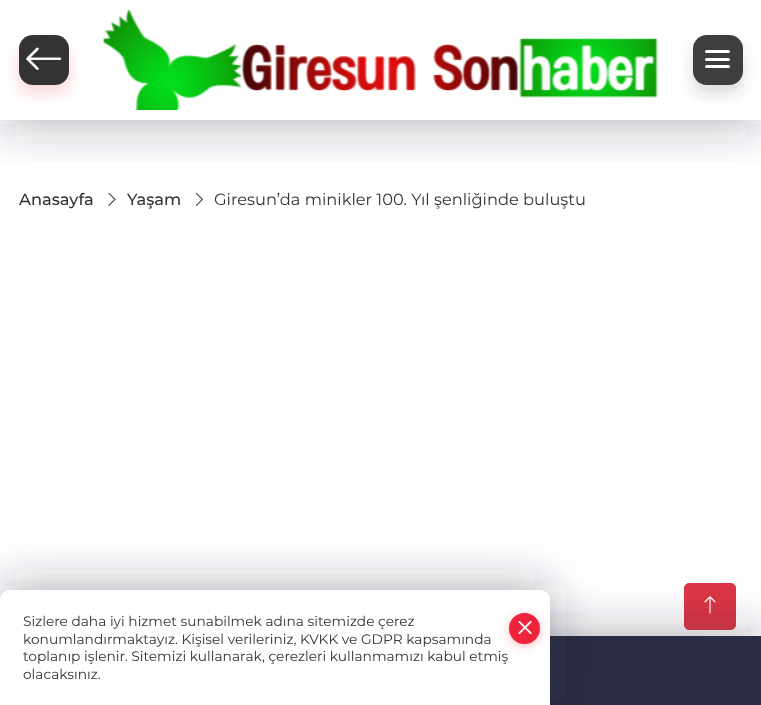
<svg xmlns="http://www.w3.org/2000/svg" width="761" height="705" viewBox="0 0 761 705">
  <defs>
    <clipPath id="clip1"><rect x="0" y="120" width="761" height="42"/></clipPath>
    <filter id="blur1" x="-50%" y="-200%" width="200%" height="500%"><feGaussianBlur stdDeviation="24"/></filter>
    <filter id="blur2" x="-50%" y="-200%" width="200%" height="500%"><feGaussianBlur stdDeviation="7"/></filter>
    <filter id="blur3" x="-50%" y="-200%" width="200%" height="500%"><feGaussianBlur stdDeviation="5"/></filter>
  </defs>
  <rect width="100%" height="100%" fill="#ffffff"/>
  <image x="108" y="192" width="8" height="14" href="img3.png"/>
  <image x="195" y="192" width="8" height="14" href="img4.png"/>
  <g clip-path="url(#clip1)">
    <rect x="0" y="4" width="761" height="120" fill="#2b2d42" fill-opacity="0.36" filter="url(#blur1)"/>
  </g>
  <rect x="19" y="44" width="50" height="50" rx="14" fill="#ef233c" fill-opacity="0.18" filter="url(#blur2)"/>
  <rect x="19" y="35" width="50" height="50" rx="14" fill="#333333"/>
  <image x="26" y="47" width="36" height="23" href="img1.png"/>
  <image x="103" y="10" width="555" height="100" href="img2.png"/>
  <rect x="693" y="44" width="50" height="50" rx="14" fill="#3e3e3e" fill-opacity="0.18" filter="url(#blur2)"/>
  <rect x="693" y="35" width="50" height="50" rx="14" fill="#3e3e3e"/>
  <rect x="705" y="58" width="25" height="3" rx="1.5" fill="#ffffff"/>
  <rect x="705" y="50" width="25" height="3" rx="1.5" fill="#ffffff"/>
  <rect x="705" y="65" width="25" height="3" rx="1.5" fill="#ffffff"/>
  <text x="19" y="205" font-family="Montserrat" font-size="16.25" font-weight="500" fill="#333333">Anasayfa</text>
  <text x="127" y="205" font-family="Montserrat" font-size="16.25" font-weight="500" fill="#333333">Yaşam</text>
  <text x="214" y="205" font-family="Montserrat" font-size="16.25" fill="#333333">Giresun’da minikler 100. Yıl şenliğinde buluştu</text>
  <rect x="684.5" y="583.5" width="51" height="46" rx="4.5" fill="#dc3545" stroke="#dc3545"/>
  <image x="704" y="596" width="12" height="18" href="img5.png"/>
  <rect x="0" y="633" width="761" height="68" fill="#2b2d42" fill-opacity="0.36" filter="url(#blur1)"/>
  <rect x="550" y="636" width="211" height="69" fill="#2b2d42"/>
  <rect x="0" y="586" width="550" height="115" rx="10" fill="#2b2d42" fill-opacity="0.36" filter="url(#blur1)"/>
  <path d="M10 590H540C545.5 590 550 594.5 550 600V705H0V600C0 594.5 4.5 590 10 590Z" fill="#ffffff"/>
  <text x="23" y="626" font-family="Montserrat" font-size="13.75" fill="#333333">Sizlere daha iyi hizmet sunabilmek adına sitemizde çerez</text>
  <rect x="509" y="615" width="31" height="31" rx="15.5" fill="#ff566a" fill-opacity="0.38" filter="url(#blur3)"/>
  <circle cx="524.5" cy="628.5" r="15.5" fill="#ef233c"/>
  <image x="518" y="620" width="14" height="15" href="img6.png"/>
  <text x="23" y="644" font-family="Montserrat" font-size="13.75" fill="#333333">konumlandırmaktayız. Kişisel verileriniz, KVKK ve GDPR kapsamında</text>
  <text x="23" y="661" font-family="Montserrat" font-size="13.75" fill="#333333">toplanıp işlenir. Sitemizi kullanarak, çerezleri kullanmamızı kabul etmiş</text>
  <text x="23" y="679" font-family="Montserrat" font-size="13.75" fill="#333333">olacaksınız.</text>
</svg>
